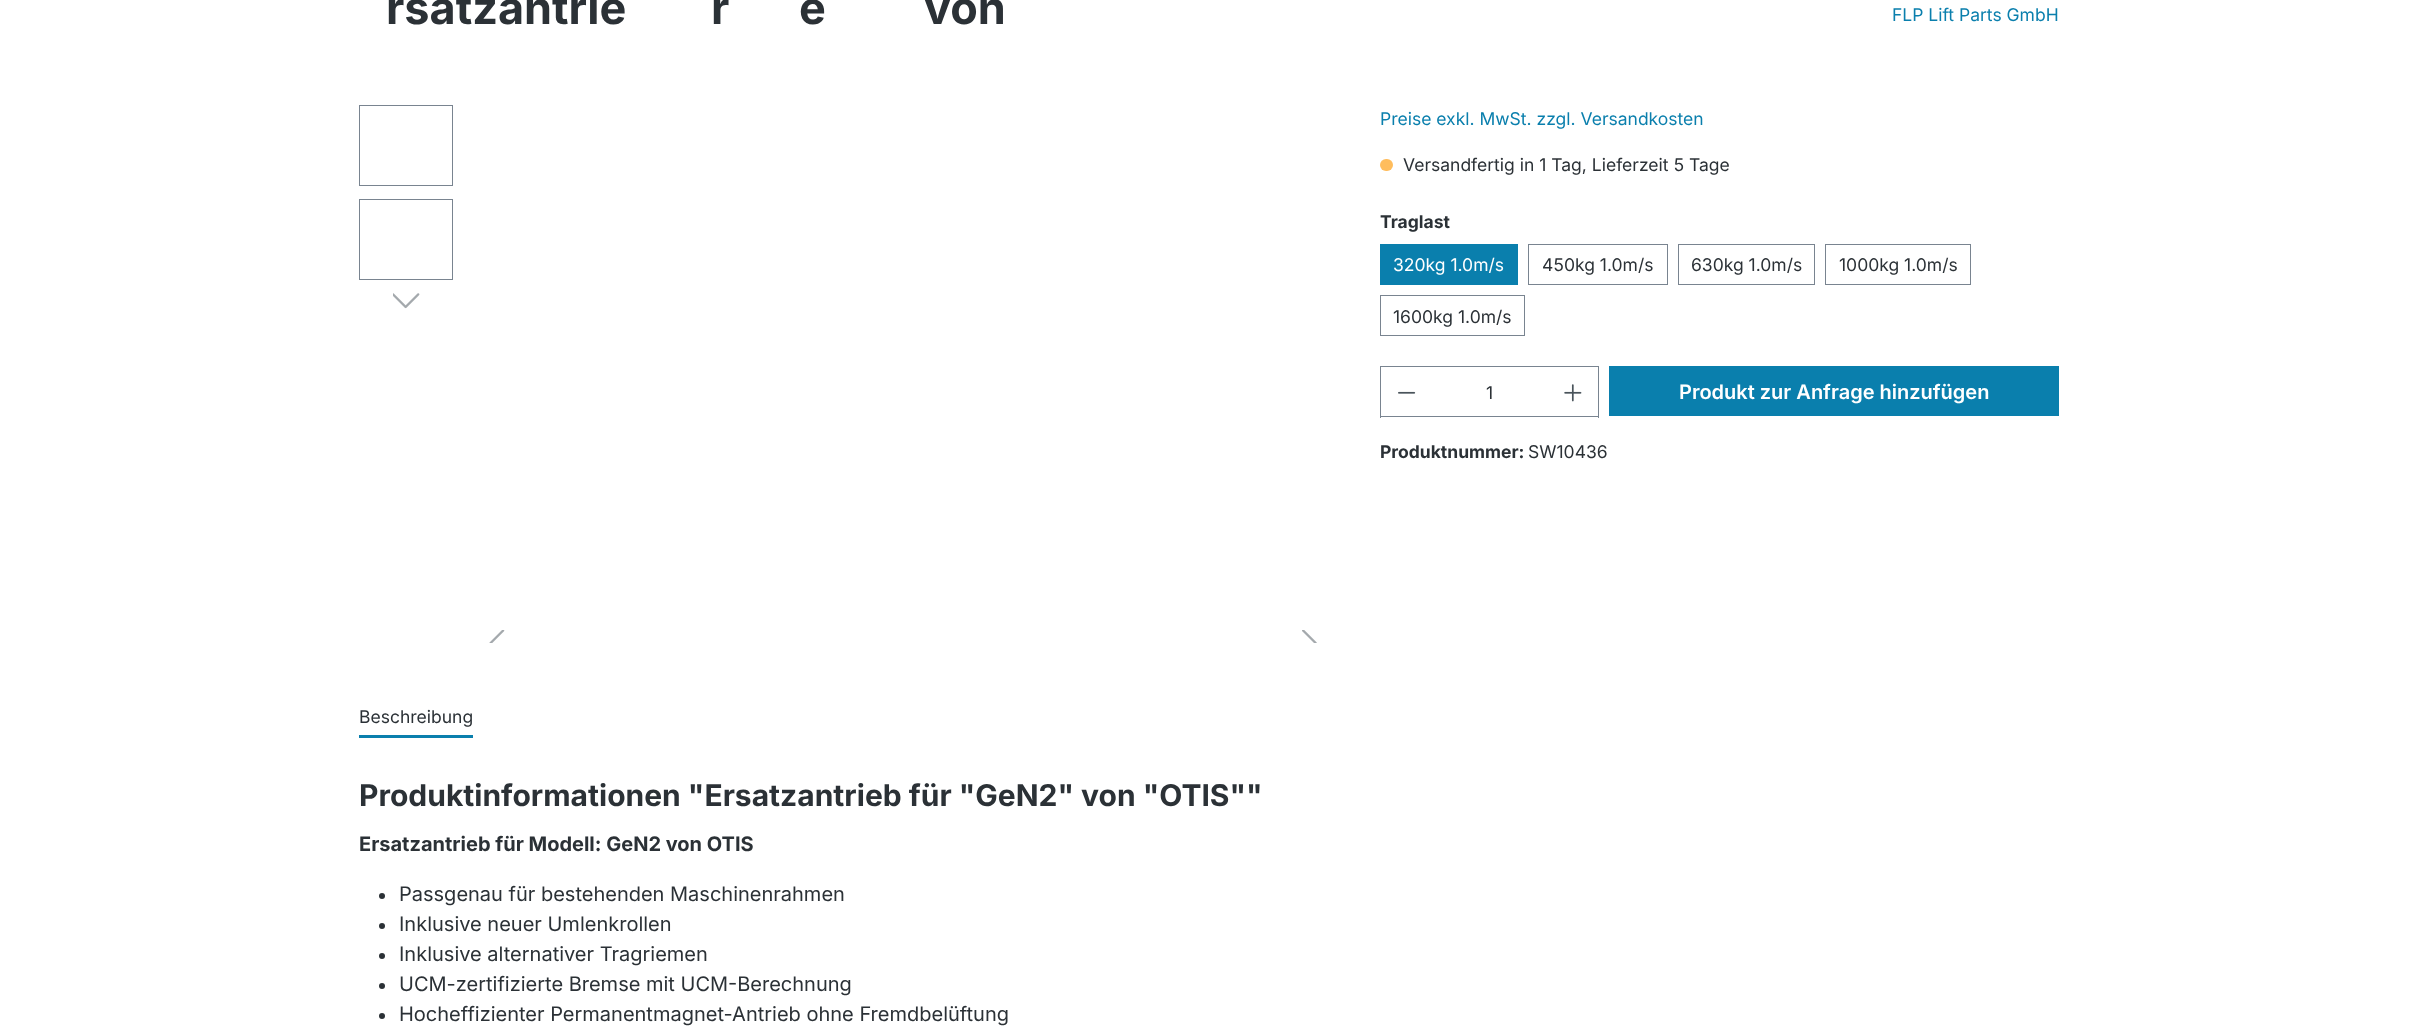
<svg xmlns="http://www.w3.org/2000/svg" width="2417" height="1027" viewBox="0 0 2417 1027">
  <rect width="100%" height="100%" fill="#ffffff"/>
  <text x="386" y="24" font-family="Inter" font-size="45" font-weight="bold" fill="#2b3136">rsatzantrie</text>
  <text x="711" y="24" font-family="Inter" font-size="45" font-weight="bold" fill="#2b3136">r</text>
  <text x="799" y="24" font-family="Inter" font-size="45" font-weight="bold" fill="#2b3136">e</text>
  <text x="924" y="24" font-family="Inter" font-size="45" font-weight="bold" fill="#2b3136">von</text>
  <text x="1892" y="21" font-family="Inter" font-size="17.5" fill="#0a7fad">FLP Lift Parts GmbH</text>
  <rect x="359.5" y="105.5" width="93" height="80" fill="none" stroke="#798490"/>
  <rect x="359.5" y="199.5" width="93" height="80" fill="none" stroke="#798490"/>
  <image x="393" y="293" width="27" height="16" href="img1.png"/>
  <image x="489" y="630" width="16" height="13" href="img2.png"/>
  <image x="1302" y="630" width="15" height="13" href="img3.png"/>
  <text x="1380" y="125" font-family="Inter" font-size="17.5" fill="#0a7fad">Preise exkl. MwSt. zzgl. Versandkosten</text>
  <rect x="1380" y="159" width="13" height="12" rx="6" fill="#ffbd5d"/>
  <text x="1403" y="171" font-family="Inter" font-size="17.5" fill="#2b3136">Versandfertig in 1 Tag, Lieferzeit 5 Tage</text>
  <text x="1380" y="228" font-family="Inter" font-size="17.5" font-weight="bold" fill="#2b3136">Traglast</text>
  <rect x="1380" y="244" width="138" height="41" fill="#0a7fad"/>
  <text x="1393" y="271" font-family="Inter" font-size="17.5" fill="#ffffff">320kg 1.0m/s</text>
  <rect x="1528.5" y="244.5" width="139" height="40" fill="none" stroke="#798490"/>
  <text x="1542" y="271" font-family="Inter" font-size="17.5" fill="#2b3136">450kg 1.0m/s</text>
  <rect x="1678.5" y="244.5" width="136" height="40" fill="none" stroke="#798490"/>
  <text x="1691" y="271" font-family="Inter" font-size="17.5" fill="#2b3136">630kg 1.0m/s</text>
  <rect x="1825.5" y="244.5" width="145" height="40" fill="none" stroke="#798490"/>
  <text x="1839" y="271" font-family="Inter" font-size="17.5" fill="#2b3136">1000kg 1.0m/s</text>
  <rect x="1380.5" y="295.5" width="144" height="40" fill="none" stroke="#798490"/>
  <text x="1393" y="323" font-family="Inter" font-size="17.5" fill="#2b3136">1600kg 1.0m/s</text>
  <rect x="1380" y="366" width="219" height="1" fill="#798490"/>
  <rect x="1380" y="416" width="169" height="1" fill="#798490"/>
  <rect x="1380" y="366" width="1" height="52" fill="#798490"/>
  <image x="1398" y="391" width="18" height="3" href="img4.png"/>
  <text x="1486" y="399" font-family="Inter" font-size="17.5" fill="#2b3136">1</text>
  <rect x="1598" y="366" width="1" height="52" fill="#798490"/>
  <rect x="1548" y="416" width="51" height="1" fill="#798490"/>
  <image x="1564" y="384" width="18" height="18" href="img5.png"/>
  <rect x="1609" y="366" width="450" height="50" fill="#0a7fad"/>
  <text x="1679" y="399" font-family="Inter" font-size="20" font-weight="600" fill="#ffffff">Produkt zur Anfrage hinzufügen</text>
  <text x="1380" y="458" font-family="Inter" font-size="17.5" font-weight="bold" fill="#2b3136">Produktnummer:</text>
  <text x="1528" y="458" font-family="Inter" font-size="17.5" fill="#2b3136">SW10436</text>
  <rect x="359" y="735" width="114" height="3" fill="#0a7fad"/>
  <text x="359" y="723" font-family="Inter" font-size="17.5" fill="#2b3136">Beschreibung</text>
  <text x="359" y="806" font-family="Inter" font-size="30" font-weight="bold" fill="#2b3136">Produktinformationen "Ersatzantrieb für "GeN2" von "OTIS""</text>
  <text x="359" y="851" font-family="Inter" font-size="20" font-weight="bold" fill="#2b3136">Ersatzantrieb für Modell: GeN2 von OTIS</text>
  <circle cx="382" cy="896" r="3" fill="#2b3136"/>
  <text x="399" y="901" font-family="Inter" font-size="20" fill="#2b3136">Passgenau für bestehenden Maschinenrahmen</text>
  <circle cx="382" cy="926" r="3" fill="#2b3136"/>
  <text x="399" y="931" font-family="Inter" font-size="20" fill="#2b3136">Inklusive neuer Umlenkrollen</text>
  <circle cx="382" cy="956" r="3" fill="#2b3136"/>
  <text x="399" y="961" font-family="Inter" font-size="20" fill="#2b3136">Inklusive alternativer Tragriemen</text>
  <circle cx="382" cy="986" r="3" fill="#2b3136"/>
  <text x="399" y="991" font-family="Inter" font-size="20" fill="#2b3136">UCM-zertifizierte Bremse mit UCM-Berechnung</text>
  <circle cx="382" cy="1016" r="3" fill="#2b3136"/>
  <text x="399" y="1021" font-family="Inter" font-size="20" fill="#2b3136">Hocheffizienter Permanentmagnet-Antrieb ohne Fremdbelüftung</text>
</svg>
